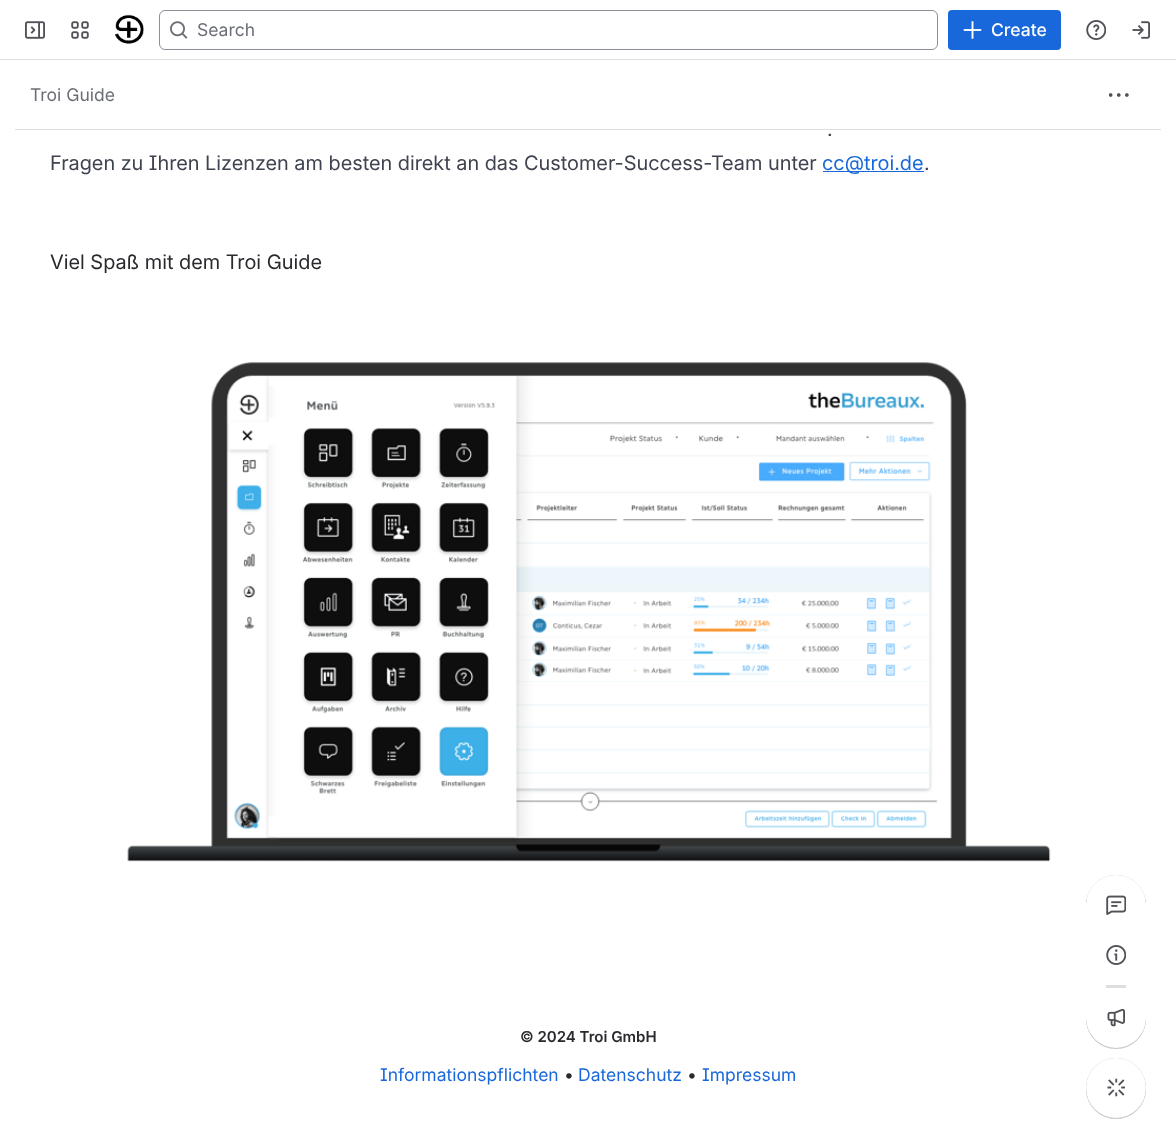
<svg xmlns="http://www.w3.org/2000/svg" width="1176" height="1132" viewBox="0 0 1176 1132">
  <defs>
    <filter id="blur1" x="-50%" y="-200%" width="200%" height="500%"><feGaussianBlur stdDeviation="0.5"/></filter>
  </defs>
  <rect width="100%" height="100%" fill="#ffffff"/>
  <rect x="0" y="59" width="1176" height="1" fill="#dddedd"/>
  <image x="25" y="21" width="20" height="18" href="img1.png"/>
  <image x="71" y="21" width="18" height="18" href="img2.png"/>
  <image x="115" y="14" width="29" height="30" href="img3.png"/>
  <rect x="159.5" y="10.5" width="778" height="39" rx="5.5" fill="none" stroke="#8c8f97"/>
  <image x="170" y="21" width="18" height="18" href="img4.png"/>
  <text x="197" y="36" font-family="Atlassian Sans" font-size="17.5" fill="#6b6e76">Search</text>
  <rect x="948" y="10" width="113" height="40" rx="4" fill="#1868db"/>
  <image x="963" y="21" width="19" height="18" href="img5.png"/>
  <text x="991" y="36" font-family="Atlassian Sans" font-size="17.5" font-weight="500" fill="#ffffff">Create</text>
  <image x="1086" y="20" width="20" height="20" href="img6.png"/>
  <image x="1132" y="21" width="18" height="18" href="img7.png"/>
  <rect x="15" y="129" width="1146" height="1" fill="#dddedd"/>
  <text x="30" y="101" font-family="Atlassian Sans" font-size="17.5" fill="#6b6e76">Troi Guide</text>
  <image x="1109" y="93" width="20" height="4" href="img8.png"/>
  <text x="827" y="136" font-family="'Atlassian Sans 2'" font-size="20" fill="#3f4350">.</text>
  <text x="50" y="170" font-family="'Atlassian Sans 2'" font-size="20" fill="#3f4350">Fragen zu Ihren Lizenzen am besten direkt an das Customer-Success-Team unter</text>
  <rect x="823" y="171" width="101" height="1" fill="#1868db"/>
  <text x="822" y="170" font-family="'Atlassian Sans 2'" font-size="20" fill="#1868db">cc@troi.de</text>
  <text x="924" y="170" font-family="'Atlassian Sans 2'" font-size="20" fill="#3f4350">.</text>
  <text x="50" y="269" font-family="'Atlassian Sans 2'" font-size="20" fill="#292a2e">Viel Spaß mit dem Troi Guide</text>
  <image x="127" y="362" width="924" height="500" href="img9.png"/>
  <text x="520" y="1042" font-family="Atlassian Sans" font-size="15" font-weight="600" fill="#292a2e">© 2024 Troi GmbH</text>
  <text x="380" y="1081" font-family="Atlassian Sans" font-size="17.5" fill="#1868db">Informationspflichten</text>
  <text x="564" y="1081" font-family="Atlassian Sans" font-size="17.5" fill="#292a2e">•</text>
  <text x="578" y="1081" font-family="Atlassian Sans" font-size="17.5" fill="#1868db">Datenschutz</text>
  <text x="687" y="1081" font-family="Atlassian Sans" font-size="17.5" fill="#292a2e">•</text>
  <text x="702" y="1081" font-family="Atlassian Sans" font-size="17.5" fill="#1868db">Impressum</text>
  <rect x="1086" y="875" width="60" height="173" rx="30" fill="#1e1f21" fill-opacity="0.31" filter="url(#blur1)"/>
  <rect x="1086" y="876" width="60" height="173" rx="30" fill="#1e1f21" fill-opacity="0.25" filter="url(#blur1)"/>
  <rect x="1086" y="875" width="60" height="173" rx="30" fill="#ffffff"/>
  <image x="1106" y="895" width="20" height="20" href="img10.png"/>
  <image x="1106" y="945" width="20" height="20" href="img11.png"/>
  <rect x="1106" y="985" width="20" height="3" fill="#dddedd"/>
  <image x="1107" y="1008" width="18" height="19" href="img12.png"/>
  <rect x="1086" y="1058" width="60" height="60" rx="30" fill="#1e1f21" fill-opacity="0.31" filter="url(#blur1)"/>
  <rect x="1086" y="1059" width="60" height="60" rx="30" fill="#1e1f21" fill-opacity="0.25" filter="url(#blur1)"/>
  <circle cx="1116" cy="1088" r="30" fill="#ffffff"/>
  <image x="1107" y="1078" width="18" height="19" href="img13.png"/>
</svg>
